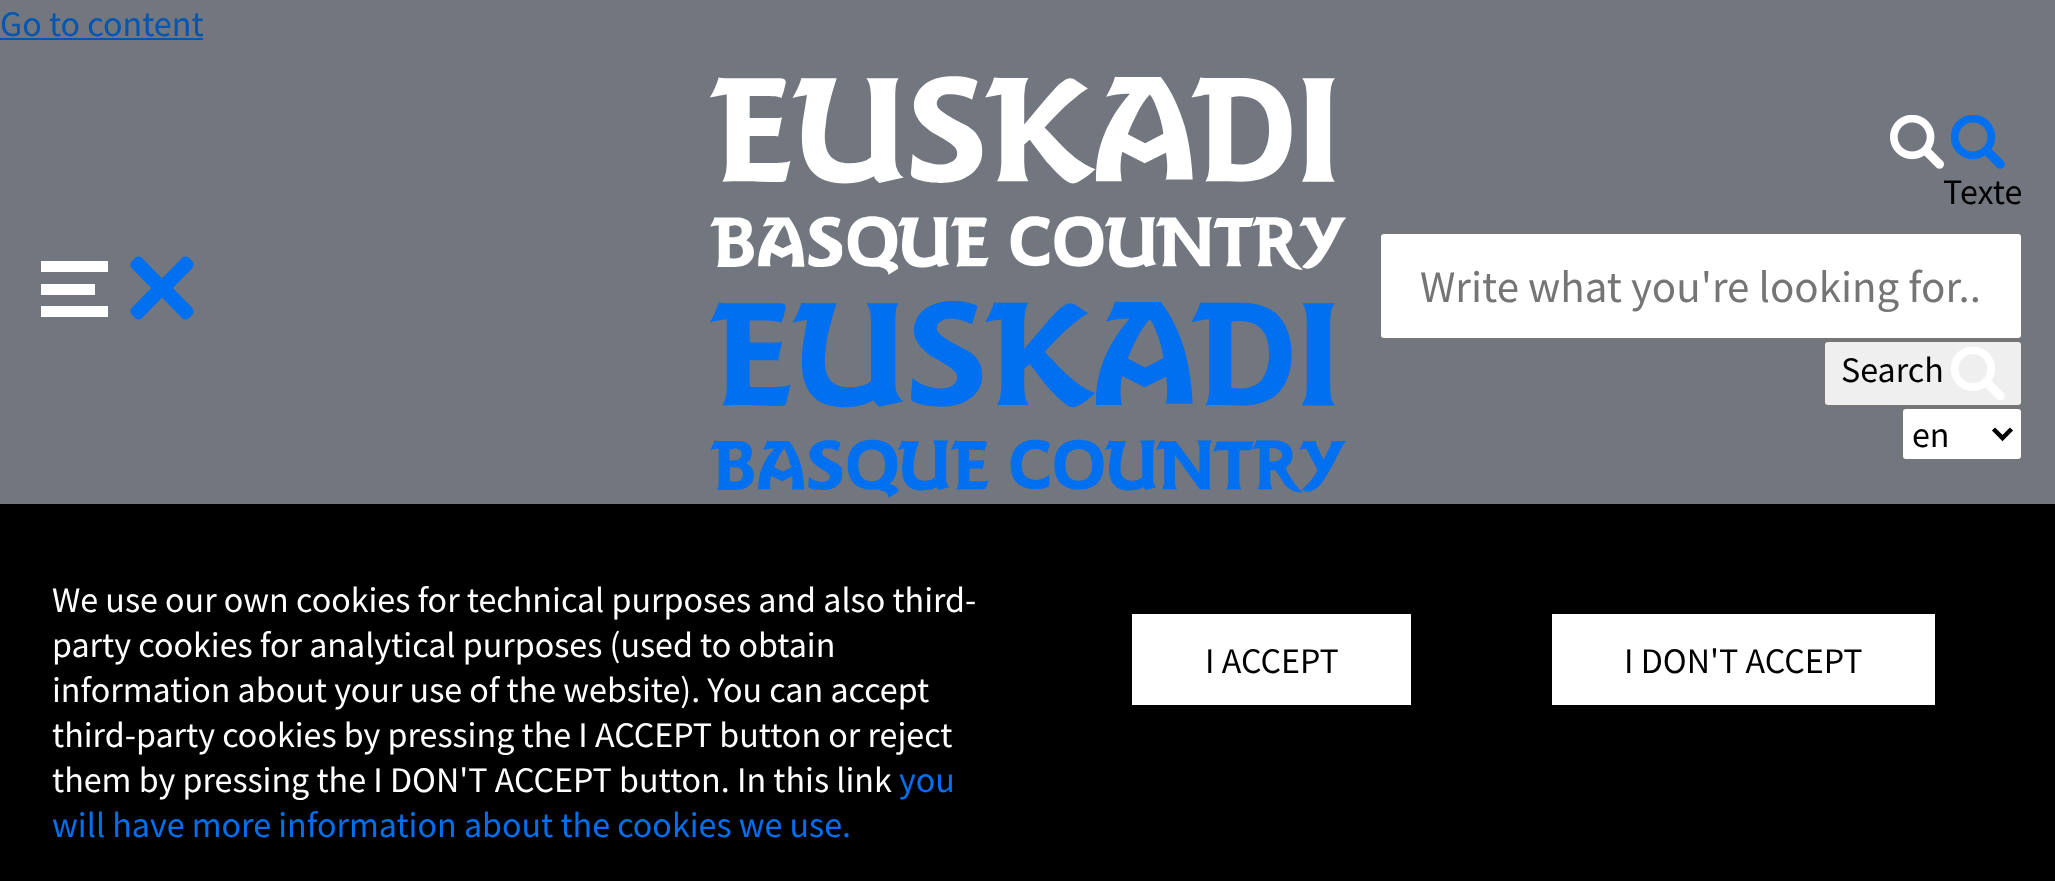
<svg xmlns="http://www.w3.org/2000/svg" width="2055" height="881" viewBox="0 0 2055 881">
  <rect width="100%" height="100%" fill="#72767e"/>
  <text x="0" y="36" font-family="Source Sans Pro" font-size="36" fill="#0056b3">Go to content</text>
  <rect x="0" y="38" width="203" height="2" fill="#0056b3"/>
  <rect x="41" y="261" width="67" height="11" fill="#ffffff"/>
  <image x="130" y="256" width="64" height="64" href="img1.png"/>
  <rect x="41" y="284" width="54" height="11" fill="#ffffff"/>
  <rect x="41" y="306" width="67" height="11" fill="#ffffff"/>
  <image x="709" y="76" width="638" height="199" href="img2.png"/>
  <image x="709" y="301" width="638" height="197" href="img3.png"/>
  <image x="1890" y="115" width="54" height="54" href="img4.png"/>
  <image x="1951" y="115" width="54" height="54" href="img5.png"/>
  <text x="1943" y="204" font-family="Source Sans Pro" font-size="36" fill="#000000">Texte</text>
  <rect x="1380" y="233" width="642" height="106" rx="4" fill="#ffffff" stroke="#767676" stroke-width="2"/>
  <text x="1420" y="302" font-family="Source Sans Pro" font-size="45" fill="#757575">Write what you're looking for..</text>
  <rect x="1824" y="341" width="198" height="65" rx="4" fill="#efefef" stroke="#767676" stroke-width="2"/>
  <text x="1841" y="382" font-family="Source Sans Pro" font-size="36" fill="#000000">Search</text>
  <image x="1951" y="347" width="54" height="54" href="img6.png"/>
  <rect x="1902" y="408" width="120" height="52" rx="4" fill="#ffffff" stroke="#767676" stroke-width="2"/>
  <path d="M1993.5 429L2002.5 438L2011.5 429" fill="none" stroke="#000000" stroke-width="4.5"/>
  <text x="1912" y="447" font-family="Source Sans Pro" font-size="36" fill="#000000">en</text>
  <rect x="0" y="504" width="2055" height="377" fill="#000000"/>
  <text x="52" y="612" font-family="Source Sans Pro" font-size="36" fill="#ffffff">We use our own cookies for technical purposes and also third-</text>
  <text x="52" y="657" font-family="Source Sans Pro" font-size="36" fill="#ffffff">party cookies for analytical purposes (used to obtain</text>
  <text x="52" y="702" font-family="Source Sans Pro" font-size="36" fill="#ffffff">information about your use of the website). You can accept</text>
  <text x="52" y="747" font-family="Source Sans Pro" font-size="36" fill="#ffffff">third-party cookies by pressing the I ACCEPT button or reject</text>
  <text x="52" y="792" font-family="Source Sans Pro" font-size="36" fill="#ffffff">them by pressing the I DON'T ACCEPT button. In this link</text>
  <text x="899" y="792" font-family="Source Sans Pro" font-size="36" fill="#006ff0">you</text>
  <text x="52" y="837" font-family="Source Sans Pro" font-size="36" fill="#006ff0">will have more information about the cookies we use.</text>
  <rect x="1132" y="614" width="279" height="91" fill="#ffffff"/>
  <text x="1205" y="673" font-family="Source Sans Pro" font-size="36" fill="#000000">I ACCEPT</text>
  <rect x="1552" y="614" width="383" height="91" fill="#ffffff"/>
  <text x="1624" y="673" font-family="Source Sans Pro" font-size="36" fill="#000000">I DON'T ACCEPT</text>
</svg>
